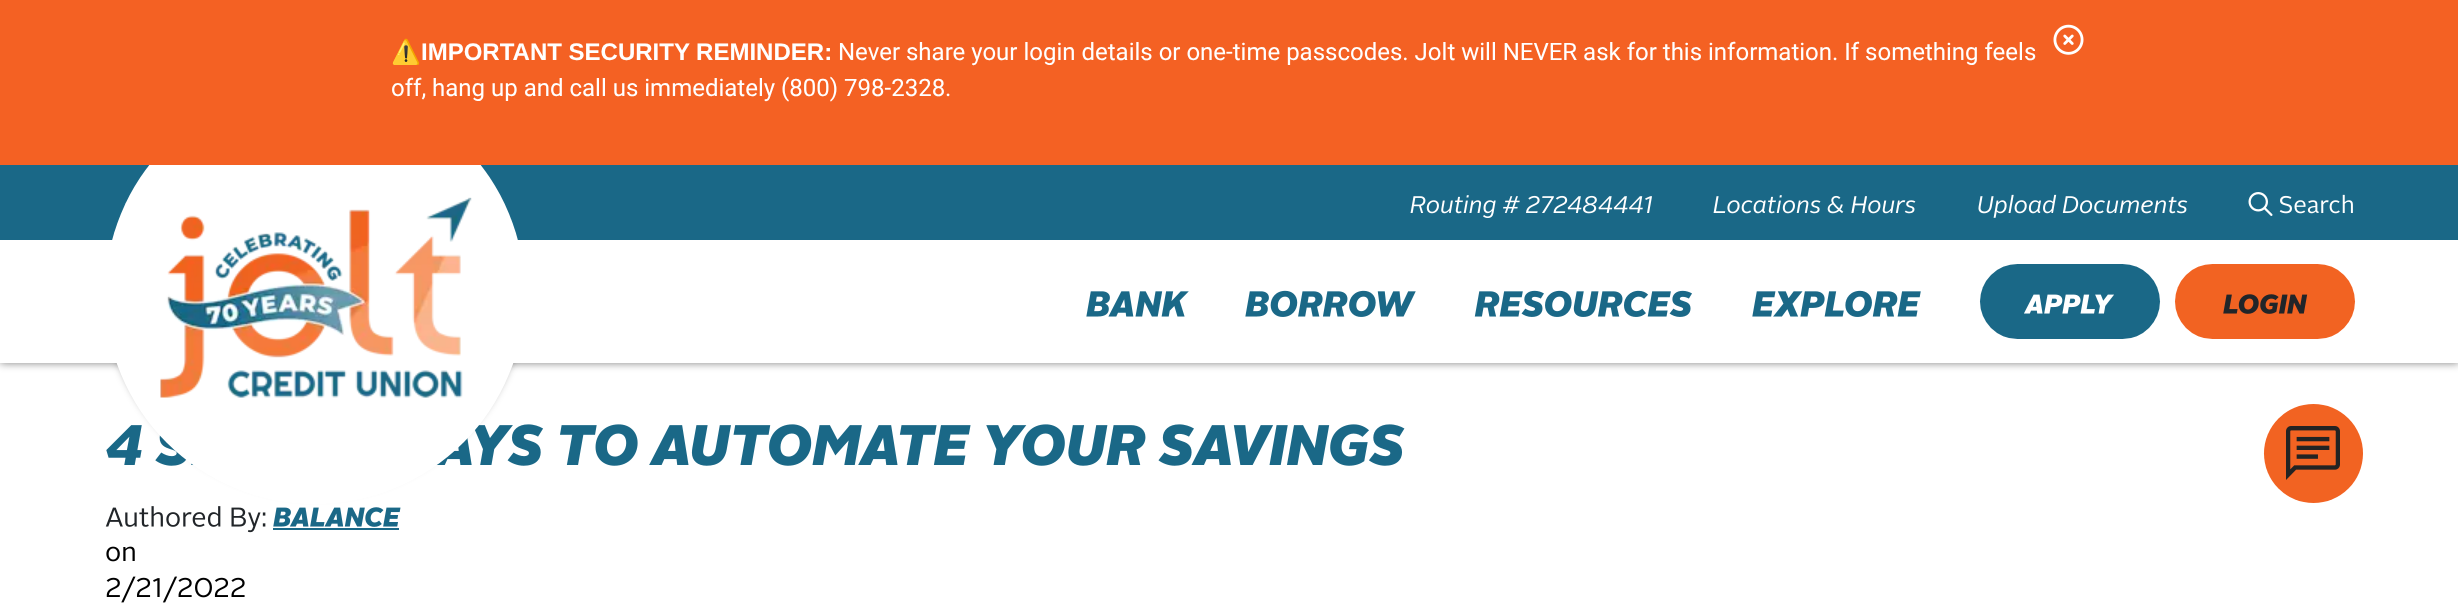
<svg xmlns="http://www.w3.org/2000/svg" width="2458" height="607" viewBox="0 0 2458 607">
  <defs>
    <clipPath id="clip1"><rect x="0" y="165" width="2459" height="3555"/></clipPath>
    <filter id="blur1" x="-50%" y="-200%" width="200%" height="500%"><feGaussianBlur stdDeviation="4"/></filter>
    <clipPath id="clip2"><rect x="0" y="165" width="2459" height="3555"/></clipPath>
  </defs>
  <rect width="100%" height="100%" fill="#ffffff"/>
  <rect x="0" y="0" width="2458" height="165" fill="#f46123"/>
  <text x="391" y="60" font-family="Noto Color Emoji" font-size="24" font-weight="bold" fill="#ffffff">⚠️</text>
  <text x="421" y="60" font-family="Liberation Sans" font-size="24" font-weight="bold" fill="#ffffff">IMPORTANT SECURITY REMINDER:</text>
  <text x="838" y="60" font-family="Roboto" font-size="24" fill="#ffffff">Never share your login details or one-time passcodes. Jolt will NEVER ask for this information. If something feels</text>
  <text x="391" y="96" font-family="Roboto" font-size="24" fill="#ffffff">off, hang up and call us immediately (800) 798-2328.</text>
  <image x="2053" y="24" width="31" height="31" href="img1.png"/>
  <image x="106" y="424" width="1299" height="42" href="img14.png"/>
  <image x="105" y="506" width="161" height="27" href="img15.png"/>
  <image x="273" y="507" width="128" height="20" href="img16.png"/>
  <g clip-path="url(#clip1)">
    <rect x="105" y="75" width="420" height="420" rx="210" fill="#000000" fill-opacity="0.5" filter="url(#blur1)"/>
    <rect x="0" y="165" width="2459" height="198" fill="#000000" fill-opacity="0.5" filter="url(#blur1)"/>
  </g>
  <rect x="0" y="240" width="2458" height="123" fill="#ffffff"/>
  <rect x="0" y="165" width="2458" height="75" fill="#1a6887"/>
  <g clip-path="url(#clip2)">
    <circle cx="315" cy="294" r="210" fill="#ffffff"/>
  </g>
  <image x="160" y="197" width="312" height="201" href="img2.png"/>
  <image x="1086" y="291" width="103" height="26" href="img3.png"/>
  <image x="1245" y="290" width="171" height="27" href="img4.png"/>
  <image x="1474" y="290" width="218" height="27" href="img5.png"/>
  <image x="1752" y="290" width="169" height="27" href="img6.png"/>
  <rect x="1980" y="264" width="180" height="75" rx="37.5" fill="#1a6887"/>
  <image x="2024" y="294" width="90" height="20" href="img7.png"/>
  <rect x="2175" y="264" width="180" height="75" rx="37.5" fill="#f26322"/>
  <image x="2223" y="294" width="85" height="20" href="img8.png"/>
  <image x="1410" y="195" width="242" height="23" href="img9.png"/>
  <image x="1713" y="195" width="203" height="19" href="img10.png"/>
  <image x="1978" y="194" width="210" height="24" href="img11.png"/>
  <image x="2248" y="192" width="25" height="24" href="img12.png"/>
  <image x="2279" y="194" width="74" height="20" href="img13.png"/>
  <rect x="273" y="528" width="126" height="2" fill="#1a6887"/>
  <image x="106" y="546" width="29" height="16" href="img17.png"/>
  <image x="106" y="576" width="139" height="27" href="img18.png"/>
  <circle cx="2313.5" cy="453.5" r="49.5" fill="#f26322"/>
  <image x="2286" y="426" width="54" height="54" href="img19.png"/>
</svg>
